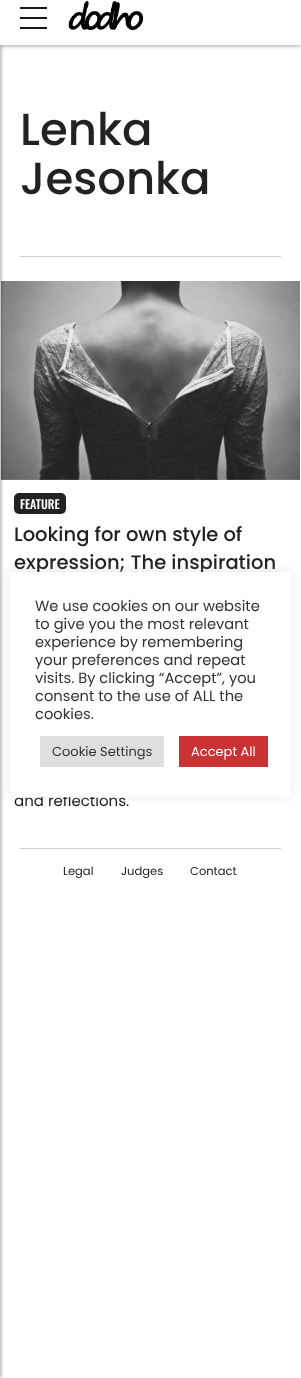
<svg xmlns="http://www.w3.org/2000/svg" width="301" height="1378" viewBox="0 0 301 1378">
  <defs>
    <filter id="blur1" x="-50%" y="-200%" width="200%" height="500%"><feGaussianBlur stdDeviation="2.5"/></filter>
    <filter id="blur2" x="-50%" y="-200%" width="200%" height="500%"><feGaussianBlur stdDeviation="5"/></filter>
  </defs>
  <rect width="100%" height="100%" fill="#ffffff"/>
  <image x="1" y="281" width="299" height="199" href="img2.png"/>
  <rect x="-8" y="0" width="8" height="1378" fill="#000000" fill-opacity="0.5" filter="url(#blur1)"/>
  <rect x="0" y="-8" width="301" height="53" fill="#000000" fill-opacity="0.5" filter="url(#blur1)"/>
  <rect x="0" y="0" width="301" height="45" fill="#ffffff"/>
  <rect x="20" y="7" width="27" height="2" fill="#181818"/>
  <rect x="20" y="17" width="27" height="2" fill="#181818"/>
  <rect x="20" y="27" width="27" height="2" fill="#181818"/>
  <image x="68" y="1" width="76" height="29" href="img1.png"/>
  <rect x="20" y="256" width="261" height="1" fill="#cccccc"/>
  <text x="20" y="145" font-family="Poppins" font-size="45" font-weight="500" fill="#222222">Lenka</text>
  <text x="20" y="194" font-family="Poppins" font-size="45" font-weight="500" fill="#222222">Jesonka</text>
  <rect x="14" y="493" width="52" height="21" rx="5" fill="#222222"/>
  <text x="20" y="509" font-family="Oswald" font-size="12" font-weight="500" fill="#ffffff">FEATURE</text>
  <text x="14" y="541" font-family="Poppins" font-size="19.5" font-weight="500" fill="#222222">Looking for own style of</text>
  <text x="14" y="569" font-family="Poppins" font-size="19.5" font-weight="500" fill="#222222">expression; The inspiration</text>
  <text x="14" y="806" font-family="Poppins" font-size="15" fill="#181818">and reflections.</text>
  <rect x="20" y="848" width="261" height="1" fill="#cccccc"/>
  <text x="63" y="875" font-family="Poppins" font-size="11.5" fill="#181818">Legal</text>
  <text x="121" y="875" font-family="Poppins" font-size="11.5" fill="#181818">Judges</text>
  <text x="190" y="875" font-family="Poppins" font-size="11.5" fill="#181818">Contact</text>
  <rect x="10" y="571" width="281" height="225" rx="3" fill="#acabab" fill-opacity="0.3" filter="url(#blur2)"/>
  <rect x="10" y="572" width="281" height="225" rx="3" fill="#ffffff"/>
  <text x="35" y="611" font-family="Poppins" font-size="14.7" fill="#333333">We use cookies on our website</text>
  <text x="35" y="629" font-family="Poppins" font-size="14.7" fill="#333333">to give you the most relevant</text>
  <text x="35" y="647" font-family="Poppins" font-size="14.7" fill="#333333">experience by remembering</text>
  <text x="35" y="665" font-family="Poppins" font-size="14.7" fill="#333333">your preferences and repeat</text>
  <text x="35" y="683" font-family="Poppins" font-size="14.7" fill="#333333">visits. By clicking “Accept”, you</text>
  <text x="35" y="701" font-family="Poppins" font-size="14.7" fill="#333333">consent to the use of ALL the</text>
  <text x="35" y="719" font-family="Poppins" font-size="14.7" fill="#333333">cookies.</text>
  <rect x="40" y="736" width="124" height="31" fill="#dedfe0"/>
  <text x="52" y="756" font-family="Poppins" font-size="13" fill="#333333">Cookie Settings</text>
  <rect x="179" y="736" width="89" height="31" fill="#cb3234"/>
  <text x="191" y="756" font-family="Poppins" font-size="13" fill="#ffffff">Accept All</text>
</svg>
